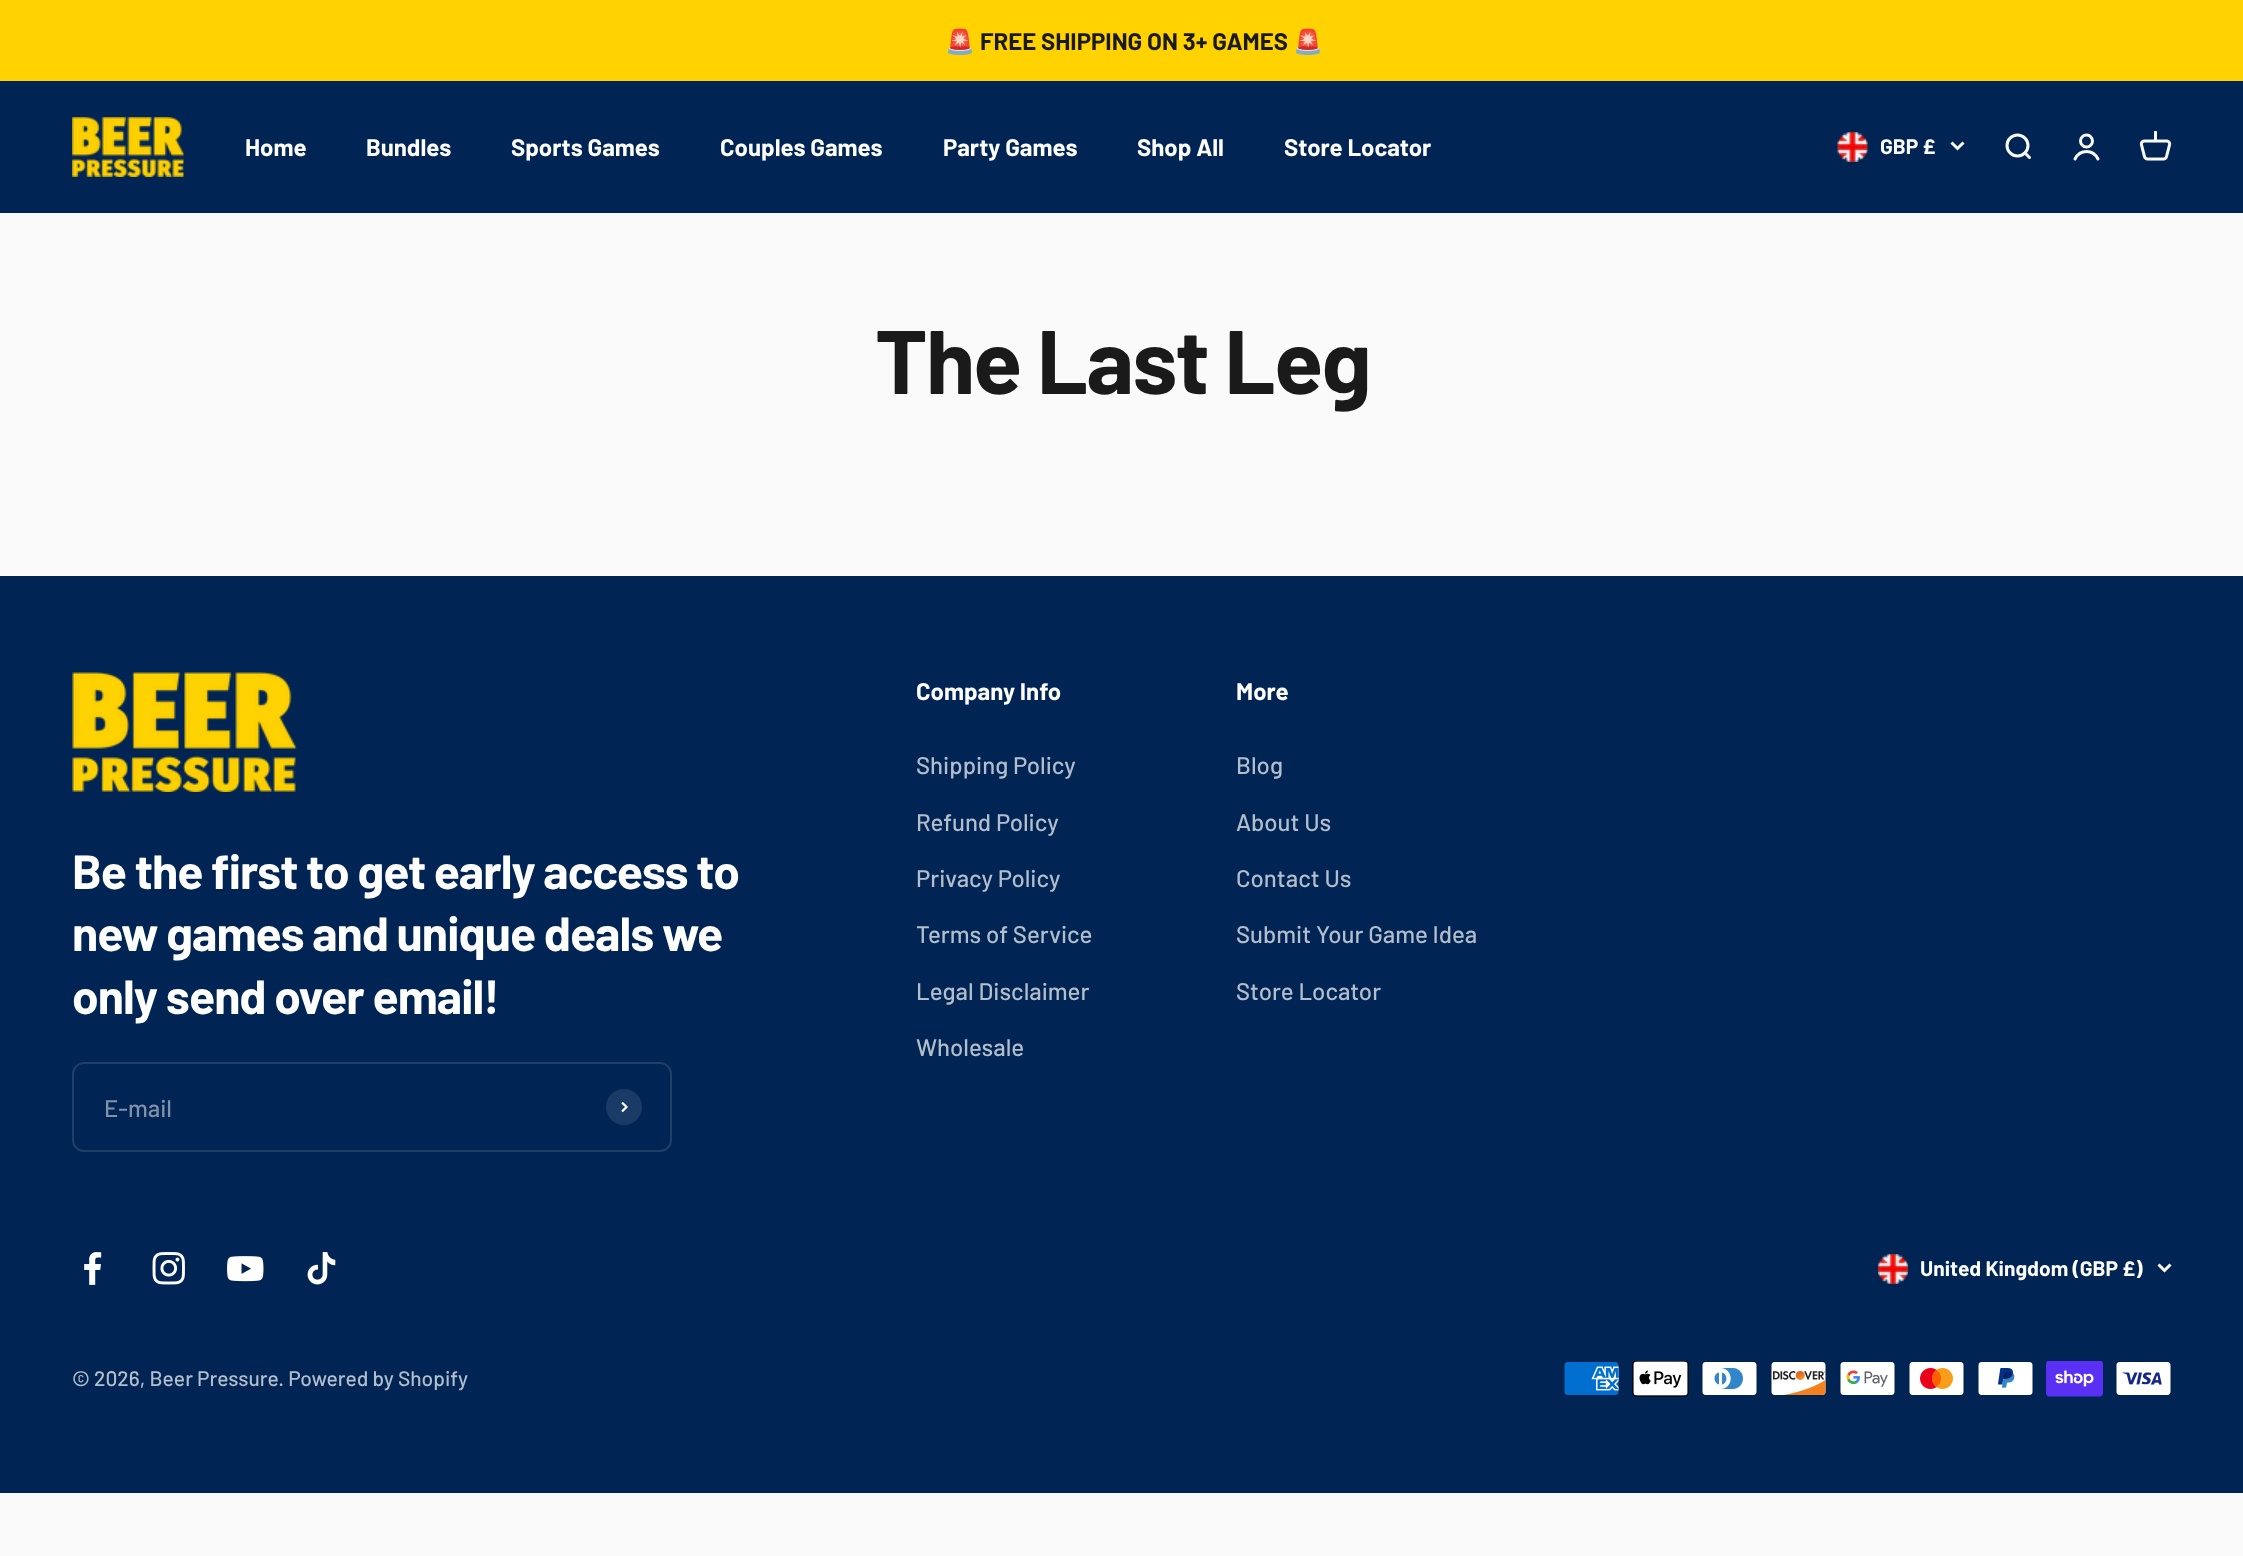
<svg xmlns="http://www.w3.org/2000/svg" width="2243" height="1556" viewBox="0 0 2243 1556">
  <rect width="100%" height="100%" fill="#fafafa"/>
  <rect x="0" y="0" width="2243" height="81" fill="#ffd200"/>
  <text x="945" y="50" font-family="Noto Color Emoji" font-size="24" font-weight="bold" fill="#1a1a1a">🚨</text>
  <text x="980" y="50" font-family="Barlow" font-size="24" font-weight="bold" fill="#1a1a1a">FREE SHIPPING ON 3+ GAMES</text>
  <text x="1293" y="50" font-family="Noto Color Emoji" font-size="24" font-weight="bold" fill="#1a1a1a">🚨</text>
  <rect x="0" y="81" width="2243" height="132" fill="#002554"/>
  <image x="72" y="117" width="112" height="60" href="img1.png"/>
  <text x="245" y="156" font-family="Barlow" font-size="24" font-weight="bold" fill="#ffffff">Home</text>
  <text x="366" y="156" font-family="Barlow" font-size="24" font-weight="bold" fill="#ffffff">Bundles</text>
  <text x="511" y="156" font-family="Barlow" font-size="24" font-weight="bold" fill="#ffffff">Sports Games</text>
  <text x="720" y="156" font-family="Barlow" font-size="24" font-weight="bold" fill="#ffffff">Couples Games</text>
  <text x="943" y="156" font-family="Barlow" font-size="24" font-weight="bold" fill="#ffffff">Party Games</text>
  <text x="1137" y="156" font-family="Barlow" font-size="24" font-weight="bold" fill="#ffffff">Shop All</text>
  <text x="1284" y="156" font-family="Barlow" font-size="24" font-weight="bold" fill="#ffffff">Store Locator</text>
  <image x="1837" y="132" width="31" height="33" href="img2.png"/>
  <text x="1880" y="154" font-family="Barlow" font-size="21" font-weight="bold" fill="#ffffff">GBP £</text>
  <path d="M1951.5 142.5L1957.5 148.5L1963.5 142.5" fill="none" stroke="#fafafa" stroke-width="3"/>
  <circle cx="2017.5" cy="145.5" r="10.5" fill="none" stroke="#fafafa" stroke-width="3"/>
  <path d="M2025 153L2029.5 157.5" fill="none" stroke="#fafafa" stroke-width="3" stroke-linecap="round" stroke-linejoin="round"/>
  <circle cx="2086.5" cy="141" r="6" fill="none" stroke="#fafafa" stroke-width="3"/>
  <path d="M2075 159C2080 149 2093 149 2098 159" fill="none" stroke="#fafafa" stroke-width="3" stroke-linecap="round"/>
  <image x="2139" y="131" width="33" height="30" href="img3.png"/>
  <text x="875" y="394" font-family="Barlow" font-size="90" font-weight="bold" letter-spacing="-1.75" fill="#1a1a1a">The Last Leg</text>
  <rect x="0" y="576" width="2243" height="917" fill="#002554"/>
  <image x="72" y="672" width="225" height="120" href="img4.png"/>
  <text x="72" y="889" font-family="Barlow" font-size="48" font-weight="bold" letter-spacing="-0.95" fill="#ffffff">Be the first to get early access to</text>
  <text x="72" y="951" font-family="Barlow" font-size="48" font-weight="bold" letter-spacing="-0.95" fill="#ffffff">new games and unique deals we</text>
  <text x="72" y="1014" font-family="Barlow" font-size="48" font-weight="bold" letter-spacing="-0.95" fill="#ffffff">only send over email!</text>
  <rect x="73" y="1063" width="598" height="88" rx="11" fill="none" stroke="#1f3f69" stroke-width="2"/>
  <text x="104" y="1117" font-family="Barlow" font-size="24" font-weight="500" fill="#8092aa">E-mail</text>
  <circle cx="624" cy="1107" r="18" fill="#1a3b65"/>
  <path d="M622 1111.5L626.5 1107L622 1102.5" fill="none" stroke="#ffffff" stroke-width="2.2"/>
  <text x="916" y="700" font-family="Barlow" font-size="24" font-weight="bold" fill="#ffffff">Company Info</text>
  <text x="916" y="774" font-family="Barlow" font-size="24" font-weight="500" fill="#b3becc">Shipping Policy</text>
  <text x="916" y="831" font-family="Barlow" font-size="24" font-weight="500" fill="#b3becc">Refund Policy</text>
  <text x="916" y="887" font-family="Barlow" font-size="24" font-weight="500" fill="#b3becc">Privacy Policy</text>
  <text x="916" y="943" font-family="Barlow" font-size="24" font-weight="500" fill="#b3becc">Terms of Service</text>
  <text x="916" y="1000" font-family="Barlow" font-size="24" font-weight="500" fill="#b3becc">Legal Disclaimer</text>
  <text x="916" y="1056" font-family="Barlow" font-size="24" font-weight="500" fill="#b3becc">Wholesale</text>
  <text x="1236" y="700" font-family="Barlow" font-size="24" font-weight="bold" fill="#ffffff">More</text>
  <text x="1236" y="774" font-family="Barlow" font-size="24" font-weight="500" fill="#b3becc">Blog</text>
  <text x="1236" y="831" font-family="Barlow" font-size="24" font-weight="500" fill="#b3becc">About Us</text>
  <text x="1236" y="887" font-family="Barlow" font-size="24" font-weight="500" fill="#b3becc">Contact Us</text>
  <text x="1236" y="943" font-family="Barlow" font-size="24" font-weight="500" fill="#b3becc">Submit Your Game Idea</text>
  <text x="1236" y="1000" font-family="Barlow" font-size="24" font-weight="500" fill="#b3becc">Store Locator</text>
  <image x="84" y="1252" width="18" height="33" href="img5.png"/>
  <image x="152" y="1252" width="33" height="33" href="img6.png"/>
  <image x="227" y="1256" width="37" height="26" href="img7.png"/>
  <image x="307" y="1252" width="29" height="33" href="img8.png"/>
  <image x="1878" y="1254" width="30" height="33" href="img9.png"/>
  <text x="1920" y="1276" font-family="Barlow" font-size="21" font-weight="bold" fill="#ffffff">United Kingdom (GBP £)</text>
  <path d="M2158.5 1264.5L2164.5 1270.5L2170.5 1264.5" fill="none" stroke="#ffffff" stroke-width="3"/>
  <text x="72" y="1386" font-family="Barlow" font-size="21" font-weight="500" fill="#b3becc">© 2026, Beer Pressure. Powered by Shopify</text>
  <image x="1563" y="1361" width="57" height="35" href="img10.png"/>
  <image x="1632" y="1361" width="57" height="36" href="img11.png"/>
  <image x="1701" y="1361" width="57" height="35" href="img12.png"/>
  <image x="1770" y="1361" width="57" height="35" href="img13.png"/>
  <image x="1839" y="1361" width="57" height="35" href="img14.png"/>
  <image x="1908" y="1361" width="57" height="35" href="img15.png"/>
  <image x="1977" y="1361" width="57" height="35" href="img16.png"/>
  <image x="2046" y="1361" width="57" height="36" href="img17.png"/>
  <image x="2115" y="1361" width="57" height="35" href="img18.png"/>
</svg>
